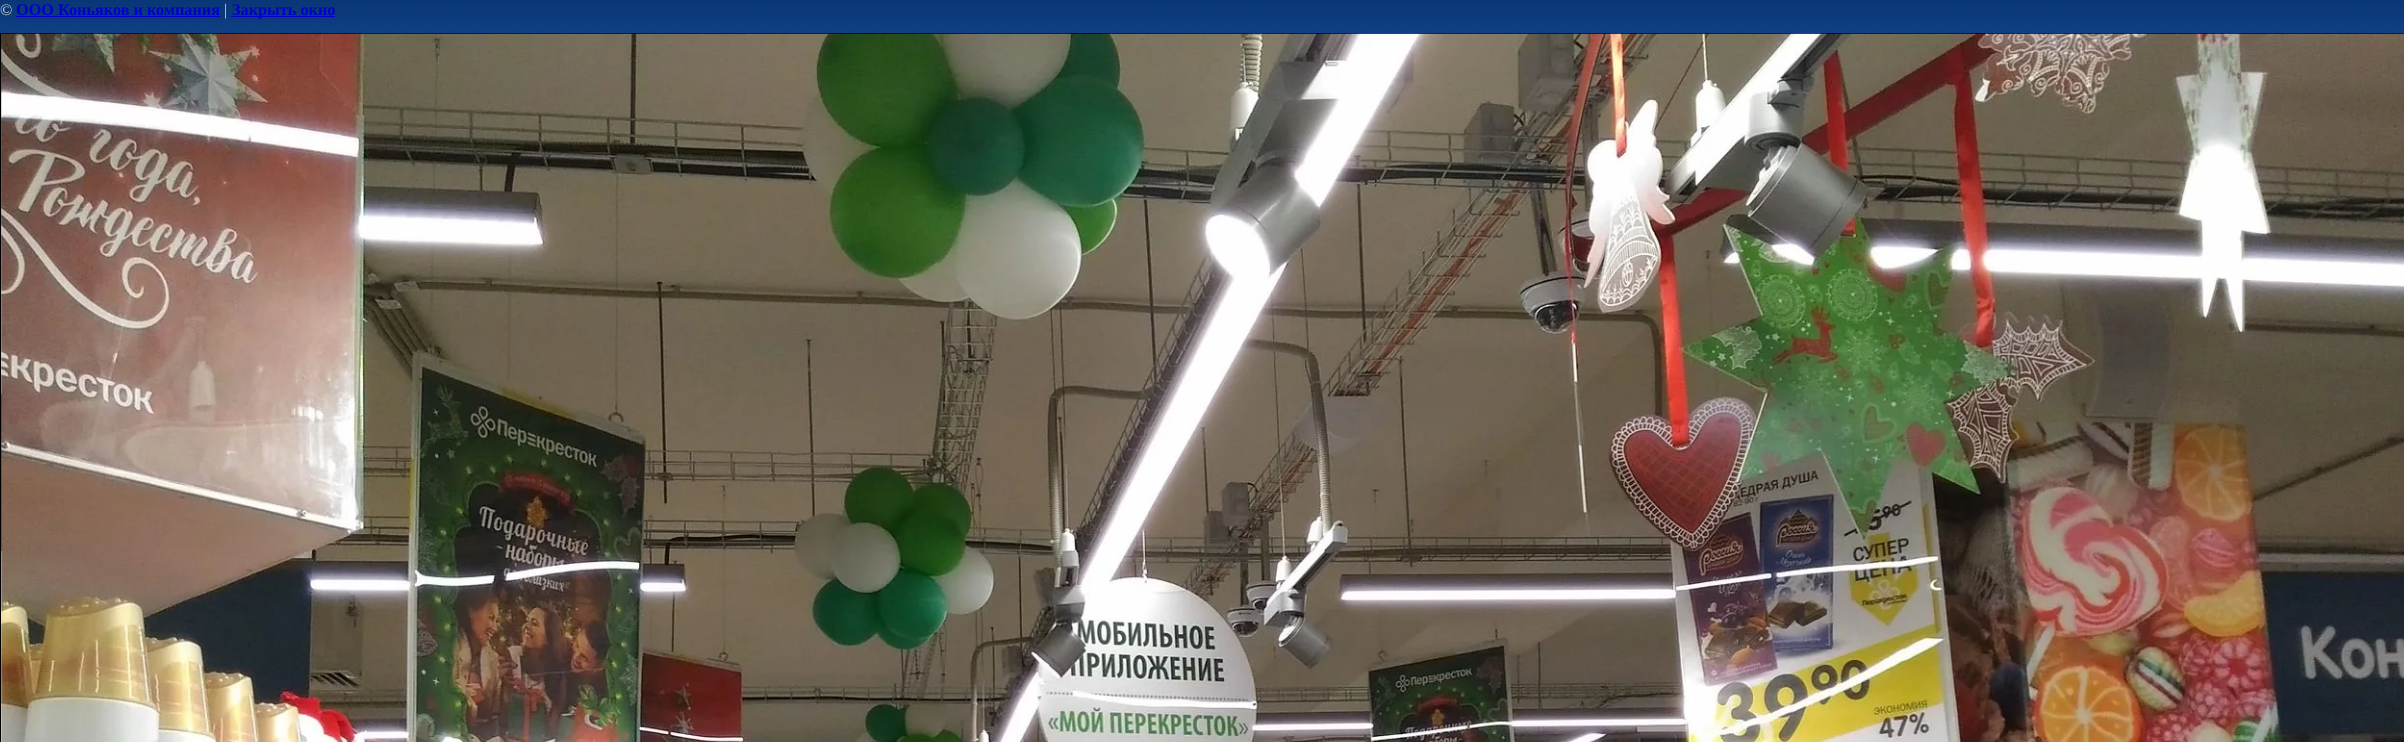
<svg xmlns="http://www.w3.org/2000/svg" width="2404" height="742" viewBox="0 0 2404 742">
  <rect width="100%" height="100%" fill="#ffffff"/>
  <image x="0" y="0" width="2404" height="551" href="img1.png"/>
  <text x="0" y="15" font-family="Liberation Serif" font-size="16.25" fill="#cccccc">©</text>
  <text x="16" y="15" font-family="Liberation Serif" font-size="16.25" font-weight="bold" fill="#0000cc">ООО Коньяков и компания</text>
  <rect x="16" y="16" width="204" height="1" fill="#0000cc"/>
  <text x="224" y="15" font-family="Liberation Serif" font-size="16.25" fill="#cccccc">|</text>
  <rect x="231" y="16" width="104" height="1" fill="#0000cc"/>
  <text x="232" y="15" font-family="Liberation Serif" font-size="16.25" font-weight="bold" fill="#0000cc">Закрыть окно</text>
  <rect x="0.5" y="33.5" width="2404" height="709" fill="none" stroke="#000000"/>
  <image x="1" y="33" width="2403" height="709" href="img2.png"/>
</svg>
